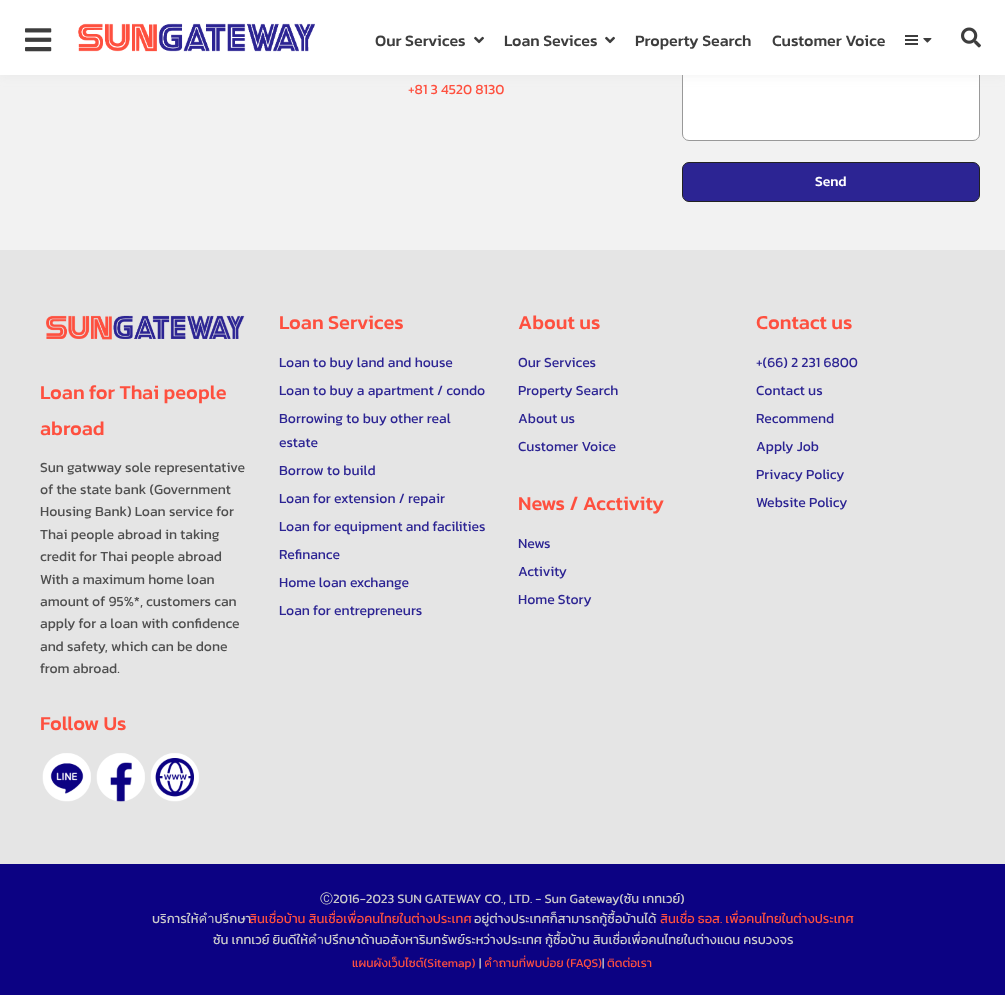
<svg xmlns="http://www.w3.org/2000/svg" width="1005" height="995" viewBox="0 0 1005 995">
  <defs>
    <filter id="blur1" x="-50%" y="-200%" width="200%" height="500%"><feGaussianBlur stdDeviation="5"/></filter>
  </defs>
  <rect width="100%" height="100%" fill="#e5e5e5"/>
  <rect x="0" y="75" width="1005" height="175" fill="#f2f2f2"/>
  <rect x="682.5" y="51.5" width="297" height="89" rx="6.5" fill="#ffffff" stroke="#999999"/>
  <rect x="0" y="2" width="1005" height="75" fill="#cccccc" fill-opacity="0.2" filter="url(#blur1)"/>
  <rect x="0" y="0" width="1005" height="75" fill="#ffffff"/>
  <image x="25" y="28" width="27" height="24" href="img1.png"/>
  <image x="78" y="23" width="237" height="29" href="img2.png"/>
  <text x="375" y="46" font-family="Kanit" font-size="16" font-weight="500" fill="#3d3d3d">Our Services</text>
  <image x="474" y="36" width="10" height="8" href="img3.png"/>
  <text x="504" y="46" font-family="Kanit" font-size="16" font-weight="500" fill="#3d3d3d">Loan Sevices</text>
  <image x="605" y="36" width="10" height="8" href="img3.png"/>
  <text x="635" y="46" font-family="Kanit" font-size="16" font-weight="500" fill="#3d3d3d">Property Search</text>
  <text x="772" y="46" font-family="Kanit" font-size="16" font-weight="500" fill="#3d3d3d">Customer Voice</text>
  <rect x="905" y="35" width="13" height="2" fill="#3d3d3d"/>
  <rect x="905" y="39" width="13" height="2" fill="#3d3d3d"/>
  <rect x="905" y="43" width="13" height="2" fill="#3d3d3d"/>
  <image x="923" y="38" width="9" height="5" href="img4.png"/>
  <image x="961" y="27" width="20" height="21" href="img5.png"/>
  <text x="408" y="94" font-family="Kanit" font-size="14" fill="#fe503f">+81 3 4520 8130</text>
  <rect x="682.5" y="162.5" width="297" height="39" rx="6.5" fill="#2c2493" stroke="#222222"/>
  <text x="815" y="186" font-family="Kanit" font-size="14" font-weight="500" fill="#ffffff">Send</text>
  <image x="46" y="315" width="199" height="25" href="img6.png"/>
  <text x="40" y="399" font-family="Kanit" font-size="20" font-weight="500" fill="#fe503f">Loan for Thai people</text>
  <text x="40" y="435" font-family="Kanit" font-size="20" font-weight="500" fill="#fe503f">abroad</text>
  <text x="40" y="472" font-family="Kanit" font-size="14" fill="#4f4f4f">Sun gatwway sole representative</text>
  <text x="40" y="494" font-family="Kanit" font-size="14" fill="#4f4f4f">of the state bank (Government</text>
  <text x="40" y="516" font-family="Kanit" font-size="14" fill="#4f4f4f">Housing Bank) Loan service for</text>
  <text x="40" y="539" font-family="Kanit" font-size="14" fill="#4f4f4f">Thai people abroad in taking</text>
  <text x="40" y="561" font-family="Kanit" font-size="14" fill="#4f4f4f">credit for Thai people abroad</text>
  <text x="40" y="584" font-family="Kanit" font-size="14" fill="#4f4f4f">With a maximum home loan</text>
  <text x="40" y="606" font-family="Kanit" font-size="14" fill="#4f4f4f">amount of 95%*, customers can</text>
  <text x="40" y="628" font-family="Kanit" font-size="14" fill="#4f4f4f">apply for a loan with confidence</text>
  <text x="40" y="651" font-family="Kanit" font-size="14" fill="#4f4f4f">and safety, which can be done</text>
  <text x="40" y="673" font-family="Kanit" font-size="14" fill="#4f4f4f">from abroad.</text>
  <text x="40" y="730" font-family="Kanit" font-size="20" font-weight="500" fill="#fe503f">Follow Us</text>
  <image x="42" y="753" width="49" height="49" href="img7.png"/>
  <image x="96" y="753" width="49" height="49" href="img8.png"/>
  <image x="150" y="753" width="49" height="49" href="img9.png"/>
  <text x="279" y="329" font-family="Kanit" font-size="20" font-weight="500" fill="#fe503f">Loan Services</text>
  <text x="279" y="367" font-family="Kanit" font-size="14" fill="#2c2493">Loan to buy land and house</text>
  <text x="279" y="395" font-family="Kanit" font-size="14" fill="#2c2493">Loan to buy a apartment / condo</text>
  <text x="279" y="423" font-family="Kanit" font-size="14" fill="#2c2493">Borrowing to buy other real</text>
  <text x="279" y="447" font-family="Kanit" font-size="14" fill="#2c2493">estate</text>
  <text x="279" y="475" font-family="Kanit" font-size="14" fill="#2c2493">Borrow to build</text>
  <text x="279" y="503" font-family="Kanit" font-size="14" fill="#2c2493">Loan for extension / repair</text>
  <text x="279" y="531" font-family="Kanit" font-size="14" fill="#2c2493">Loan for equipment and facilities</text>
  <text x="279" y="559" font-family="Kanit" font-size="14" fill="#2c2493">Refinance</text>
  <text x="279" y="587" font-family="Kanit" font-size="14" fill="#2c2493">Home loan exchange</text>
  <text x="279" y="615" font-family="Kanit" font-size="14" fill="#2c2493">Loan for entrepreneurs</text>
  <text x="518" y="329" font-family="Kanit" font-size="20" font-weight="500" fill="#fe503f">About us</text>
  <text x="518" y="367" font-family="Kanit" font-size="14" fill="#2c2493">Our Services</text>
  <text x="518" y="395" font-family="Kanit" font-size="14" fill="#2c2493">Property Search</text>
  <text x="518" y="423" font-family="Kanit" font-size="14" fill="#2c2493">About us</text>
  <text x="518" y="451" font-family="Kanit" font-size="14" fill="#2c2493">Customer Voice</text>
  <text x="518" y="510" font-family="Kanit" font-size="20" font-weight="500" fill="#fe503f">News / Acctivity</text>
  <text x="518" y="548" font-family="Kanit" font-size="14" fill="#2c2493">News</text>
  <text x="518" y="576" font-family="Kanit" font-size="14" fill="#2c2493">Activity</text>
  <text x="518" y="604" font-family="Kanit" font-size="14" fill="#2c2493">Home Story</text>
  <text x="756" y="329" font-family="Kanit" font-size="20" font-weight="500" fill="#fe503f">Contact us</text>
  <text x="756" y="367" font-family="Kanit" font-size="14" fill="#2c2493">+(66) 2 231 6800</text>
  <text x="756" y="395" font-family="Kanit" font-size="14" fill="#2c2493">Contact us</text>
  <text x="756" y="423" font-family="Kanit" font-size="14" fill="#2c2493">Recommend</text>
  <text x="756" y="451" font-family="Kanit" font-size="14" fill="#2c2493">Apply Job</text>
  <text x="756" y="479" font-family="Kanit" font-size="14" fill="#2c2493">Privacy Policy</text>
  <text x="756" y="507" font-family="Kanit" font-size="14" fill="#2c2493">Website Policy</text>
  <rect x="0" y="864" width="1005" height="131" fill="#0c0283"/>
  <text x="320" y="903" font-family="WenQuanYi Zen Hei" font-size="13" font-weight="500" fill="#cbcbcb">Ⓒ</text>
  <text x="333" y="903" font-family="Kanit" font-size="13" fill="#cbcbcb">2016-2023 SUN GATEWAY CO., LTD. - Sun Gateway(ซัน เกทเวย์)</text>
  <text x="152" y="923" font-family="Kanit" font-size="13" fill="#cbcbcb">บริการให้คำปรึกษา</text>
  <text x="249" y="923" font-family="Kanit" font-size="13" fill="#fe503f">สินเชื่อบ้าน สินเชื่อเพื่อคนไทยในต่างประเทศ</text>
  <text x="474" y="923" font-family="Kanit" font-size="13" fill="#cbcbcb">อยู่ต่างประเทศก็สามารถกู้ซื้อบ้านได้</text>
  <text x="660" y="923" font-family="Kanit" font-size="13" fill="#fe503f">สินเชื่อ ธอส. เพื่อคนไทยในต่างประเทศ</text>
  <text x="213" y="944" font-family="Kanit" font-size="13" fill="#cbcbcb">ซัน เกทเวย์ ยินดีให้คำปรึกษาด้านอสังหาริมทรัพย์ระหว่างประเทศ กู้ซื้อบ้าน สินเชื่อเพื่อคนไทยในต่างแดน ครบวงจร</text>
  <text x="352" y="967" font-family="Kanit" font-size="12" fill="#fe503f">แผนผังเว็บไซต์(Sitemap)</text>
  <text x="479" y="967" font-family="Kanit" font-size="12" fill="#cbcbcb">|</text>
  <text x="484" y="967" font-family="Kanit" font-size="12" fill="#fe503f">คำถามที่พบบ่อย (FAQS)</text>
  <text x="602" y="967" font-family="Kanit" font-size="12" fill="#cbcbcb">|</text>
  <text x="607" y="967" font-family="Kanit" font-size="12" fill="#fe503f">ติดต่อเรา</text>
</svg>
